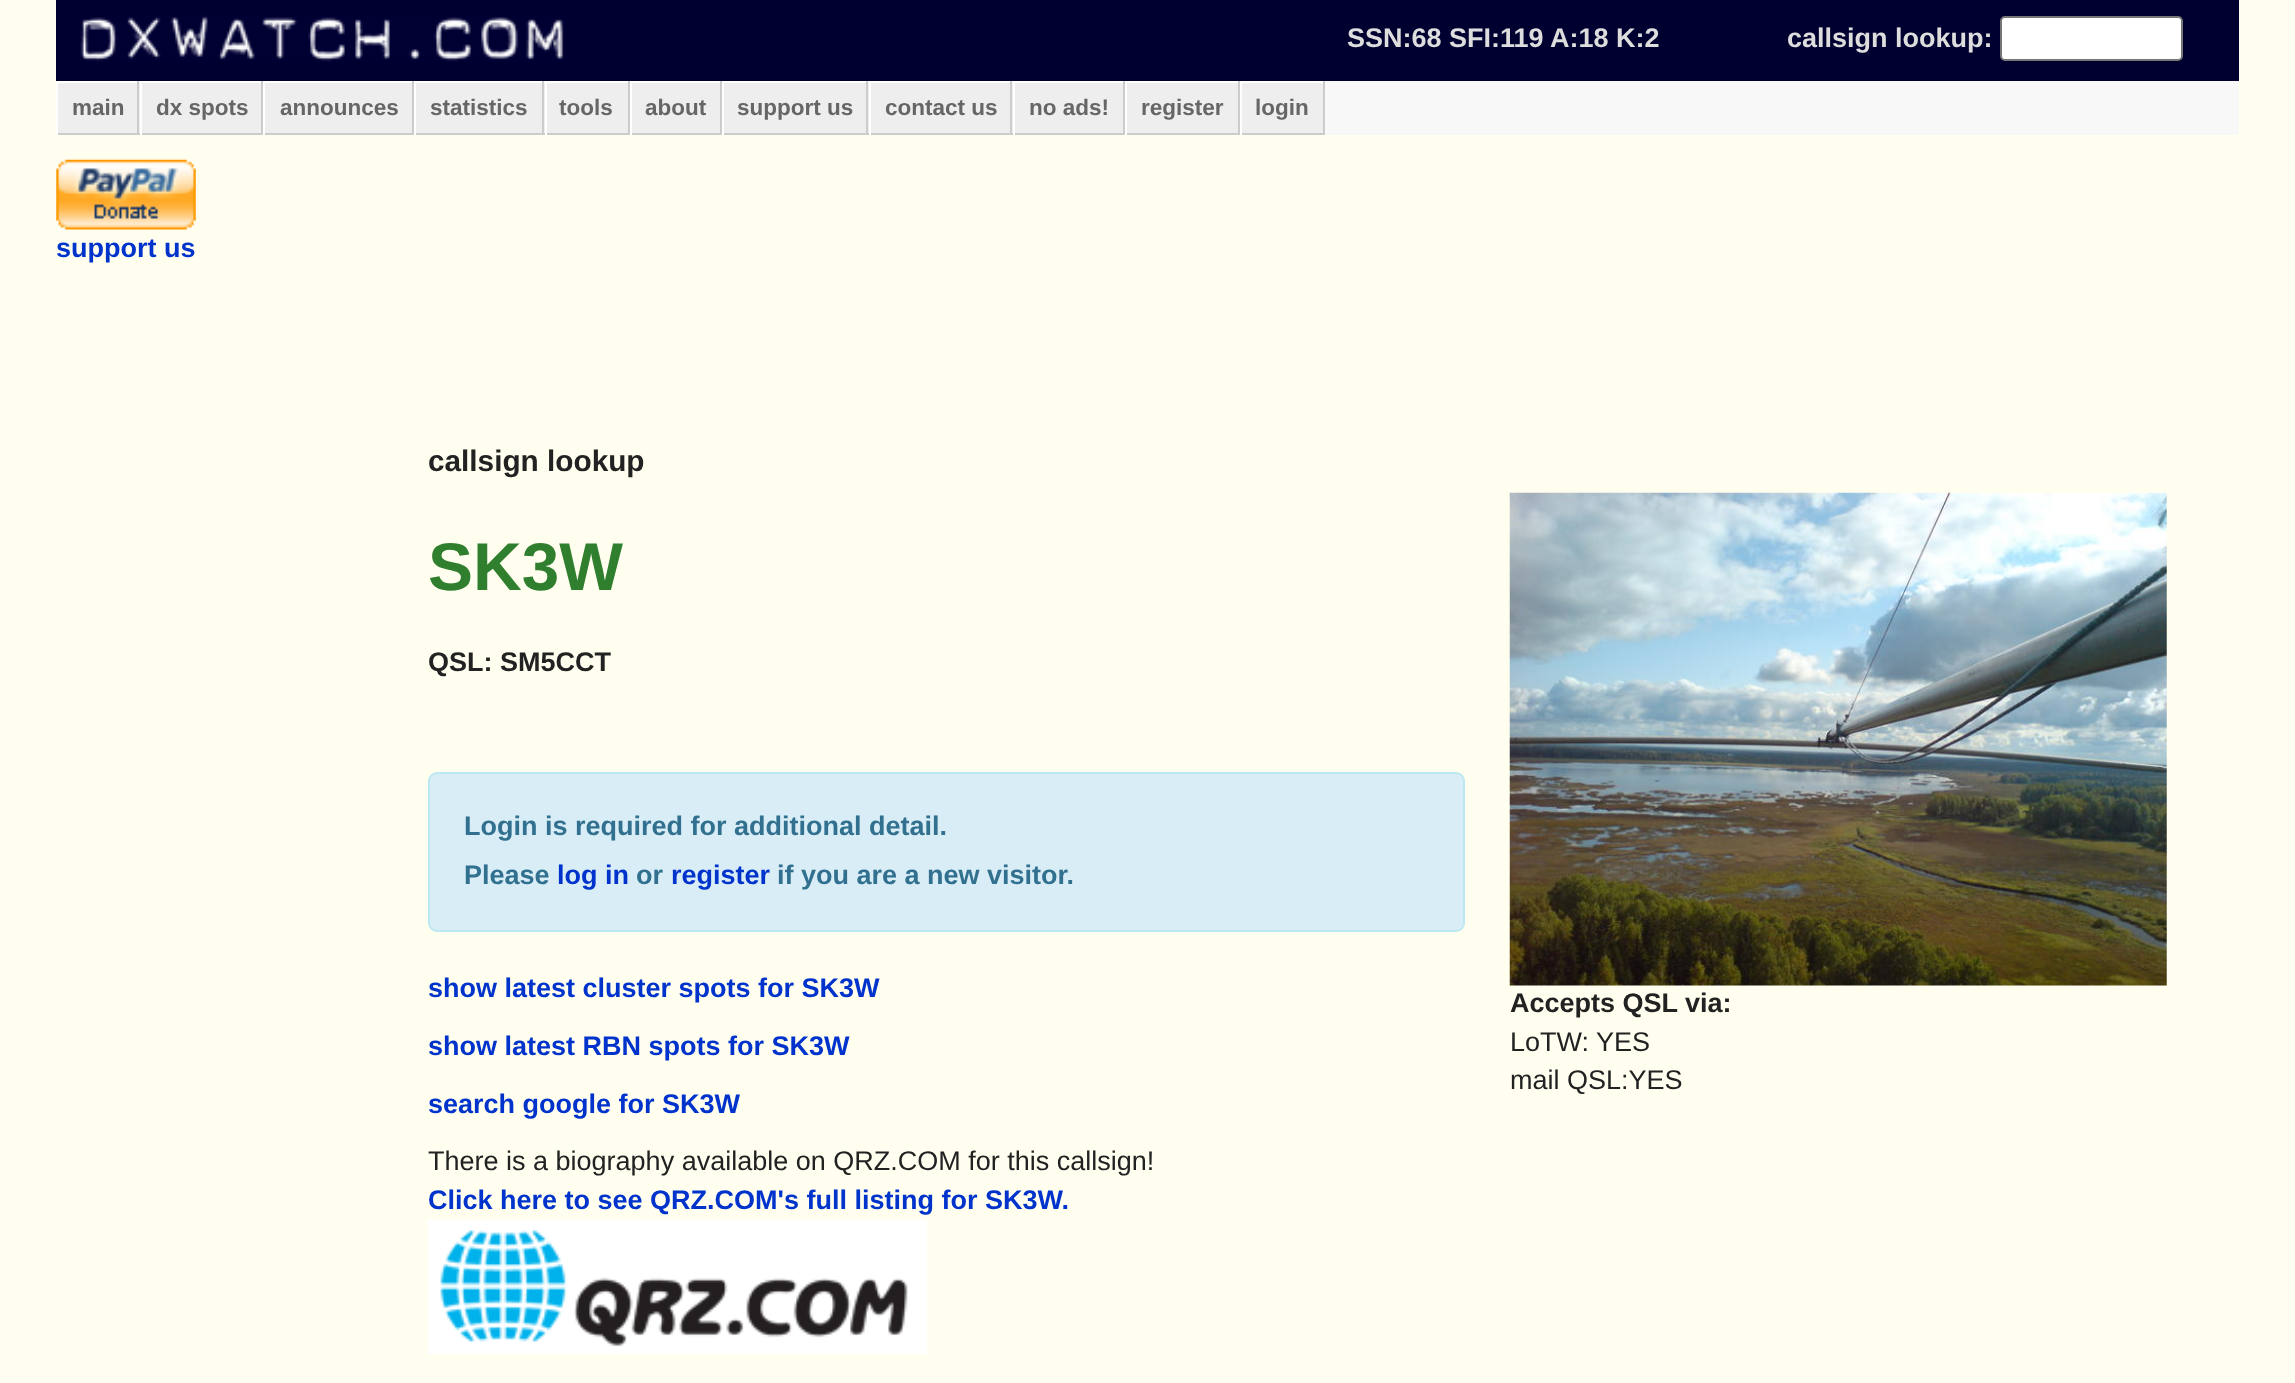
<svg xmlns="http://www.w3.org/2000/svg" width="2295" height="1383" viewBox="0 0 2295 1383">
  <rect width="100%" height="100%" fill="#fffeef"/>
  <rect x="56" y="0" width="2183" height="81" fill="#000030"/>
  <image x="80" y="15" width="484" height="47" href="img1.png"/>
  <text x="1347" y="47" font-family="Liberation Sans" font-size="27" font-weight="bold" fill="#dddddd">SSN:68 SFI:119 A:18 K:2</text>
  <text x="1787" y="47" font-family="Liberation Sans" font-size="27" font-weight="bold" fill="#dddddd">callsign lookup:</text>
  <rect x="2001" y="17" width="181" height="43" rx="4" fill="#ffffff" stroke="#767676" stroke-width="2"/>
  <rect x="1325" y="81" width="914" height="54" fill="#f8f8f8"/>
  <rect x="58" y="83" width="82" height="50" fill="#eeeeee"/>
  <rect x="56" y="81" width="1269" height="2" fill="#ffffff"/>
  <rect x="137" y="81" width="2" height="54" fill="#cccccc"/>
  <rect x="56" y="133" width="84" height="2" fill="#cccccc"/>
  <rect x="56" y="81" width="2" height="54" fill="#ffffff"/>
  <text x="72" y="115" font-family="Liberation Sans" font-size="22.5" font-weight="bold" fill="#666666">main</text>
  <rect x="142" y="83" width="119" height="50" fill="#eeeeee"/>
  <rect x="261" y="81" width="2" height="54" fill="#cccccc"/>
  <rect x="140" y="133" width="123" height="2" fill="#cccccc"/>
  <rect x="140" y="81" width="2" height="54" fill="#ffffff"/>
  <text x="156" y="115" font-family="Liberation Sans" font-size="22.5" font-weight="bold" fill="#666666">dx spots</text>
  <rect x="265" y="83" width="147" height="50" fill="#eeeeee"/>
  <rect x="412" y="81" width="2" height="54" fill="#cccccc"/>
  <rect x="263" y="133" width="151" height="2" fill="#cccccc"/>
  <rect x="263" y="81" width="2" height="54" fill="#ffffff"/>
  <text x="280" y="115" font-family="Liberation Sans" font-size="22.5" font-weight="bold" fill="#666666">announces</text>
  <rect x="416" y="83" width="129" height="50" fill="#eeeeee"/>
  <rect x="542" y="81" width="2" height="54" fill="#cccccc"/>
  <rect x="414" y="133" width="131" height="2" fill="#cccccc"/>
  <rect x="414" y="81" width="2" height="54" fill="#ffffff"/>
  <text x="430" y="115" font-family="Liberation Sans" font-size="22.5" font-weight="bold" fill="#666666">statistics</text>
  <rect x="547" y="83" width="81" height="50" fill="#eeeeee"/>
  <rect x="628" y="81" width="2" height="54" fill="#cccccc"/>
  <rect x="545" y="133" width="85" height="2" fill="#cccccc"/>
  <rect x="545" y="81" width="2" height="54" fill="#ffffff"/>
  <text x="559" y="115" font-family="Liberation Sans" font-size="22.5" font-weight="bold" fill="#666666">tools</text>
  <rect x="632" y="83" width="88" height="50" fill="#eeeeee"/>
  <rect x="720" y="81" width="2" height="54" fill="#cccccc"/>
  <rect x="630" y="133" width="92" height="2" fill="#cccccc"/>
  <rect x="630" y="81" width="2" height="54" fill="#ffffff"/>
  <text x="645" y="115" font-family="Liberation Sans" font-size="22.5" font-weight="bold" fill="#666666">about</text>
  <rect x="724" y="83" width="145" height="50" fill="#eeeeee"/>
  <rect x="866" y="81" width="2" height="54" fill="#cccccc"/>
  <rect x="722" y="133" width="147" height="2" fill="#cccccc"/>
  <rect x="722" y="81" width="2" height="54" fill="#ffffff"/>
  <text x="737" y="115" font-family="Liberation Sans" font-size="22.5" font-weight="bold" fill="#666666">support us</text>
  <rect x="871" y="83" width="142" height="50" fill="#eeeeee"/>
  <rect x="1010" y="81" width="2" height="54" fill="#cccccc"/>
  <rect x="869" y="133" width="144" height="2" fill="#cccccc"/>
  <rect x="869" y="81" width="2" height="54" fill="#ffffff"/>
  <text x="885" y="115" font-family="Liberation Sans" font-size="22.5" font-weight="bold" fill="#666666">contact us</text>
  <rect x="1015" y="83" width="108" height="50" fill="#eeeeee"/>
  <rect x="1123" y="81" width="2" height="54" fill="#cccccc"/>
  <rect x="1013" y="133" width="112" height="2" fill="#cccccc"/>
  <rect x="1013" y="81" width="2" height="54" fill="#ffffff"/>
  <text x="1029" y="115" font-family="Liberation Sans" font-size="22.5" font-weight="bold" fill="#666666">no ads!</text>
  <rect x="1127" y="83" width="111" height="50" fill="#eeeeee"/>
  <rect x="1238" y="81" width="2" height="54" fill="#cccccc"/>
  <rect x="1125" y="133" width="115" height="2" fill="#cccccc"/>
  <rect x="1125" y="81" width="2" height="54" fill="#ffffff"/>
  <text x="1141" y="115" font-family="Liberation Sans" font-size="22.5" font-weight="bold" fill="#666666">register</text>
  <rect x="1242" y="83" width="81" height="50" fill="#eeeeee"/>
  <rect x="1323" y="81" width="2" height="54" fill="#cccccc"/>
  <rect x="1240" y="133" width="85" height="2" fill="#cccccc"/>
  <rect x="1240" y="81" width="2" height="54" fill="#ffffff"/>
  <text x="1255" y="115" font-family="Liberation Sans" font-size="22.5" font-weight="bold" fill="#666666">login</text>
  <image x="56" y="159" width="140" height="71" href="img2.png"/>
  <text x="56" y="257" font-family="Liberation Sans" font-size="27" font-weight="bold" fill="#0033cc">support us</text>
  <text x="428" y="471" font-family="Liberation Sans" font-size="29.75" font-weight="bold" fill="#222222">callsign lookup</text>
  <text x="428" y="590" font-family="Liberation Sans" font-size="67.5" font-weight="bold" fill="#2f7f2f">SK3W</text>
  <text x="428" y="671" font-family="Liberation Sans" font-size="27" font-weight="bold" fill="#222222">QSL: SM5CCT</text>
  <rect x="429" y="773" width="1035" height="158" rx="8" fill="#d9edf7" stroke="#bce8f1" stroke-width="2"/>
  <text x="464" y="835" font-family="Liberation Sans" font-size="27" font-weight="bold" fill="#31708f">Login is required for additional detail.</text>
  <text x="464" y="884" font-family="Liberation Sans" font-size="27" font-weight="bold" fill="#31708f">Please</text>
  <text x="557" y="884" font-family="Liberation Sans" font-size="27" font-weight="bold" fill="#0033cc">log in</text>
  <text x="636" y="884" font-family="Liberation Sans" font-size="27" font-weight="bold" fill="#31708f">or</text>
  <text x="671" y="884" font-family="Liberation Sans" font-size="27" font-weight="bold" fill="#0033cc">register</text>
  <text x="777" y="884" font-family="Liberation Sans" font-size="27" font-weight="bold" fill="#31708f">if you are a new visitor.</text>
  <text x="428" y="997" font-family="Liberation Sans" font-size="27" font-weight="bold" fill="#0033cc">show latest cluster spots for SK3W</text>
  <text x="428" y="1055" font-family="Liberation Sans" font-size="27" font-weight="bold" fill="#0033cc">show latest RBN spots for SK3W</text>
  <text x="428" y="1113" font-family="Liberation Sans" font-size="27" font-weight="bold" fill="#0033cc">search google for SK3W</text>
  <image x="1509" y="492" width="658" height="494" href="img3.png"/>
  <text x="1510" y="1012" font-family="Liberation Sans" font-size="27" font-weight="bold" fill="#222222">Accepts QSL via:</text>
  <text x="1510" y="1051" font-family="Liberation Sans" font-size="27" fill="#222222">LoTW: YES</text>
  <text x="1510" y="1089" font-family="Liberation Sans" font-size="27" fill="#222222">mail QSL:YES</text>
  <text x="428" y="1170" font-family="Liberation Sans" font-size="27" fill="#222222">There is a biography available on QRZ.COM for this callsign!</text>
  <text x="428" y="1209" font-family="Liberation Sans" font-size="27" font-weight="bold" fill="#0033cc">Click here to see QRZ.COM's full listing for SK3W.</text>
  <image x="427" y="1219" width="500" height="136" href="img4.png"/>
</svg>
